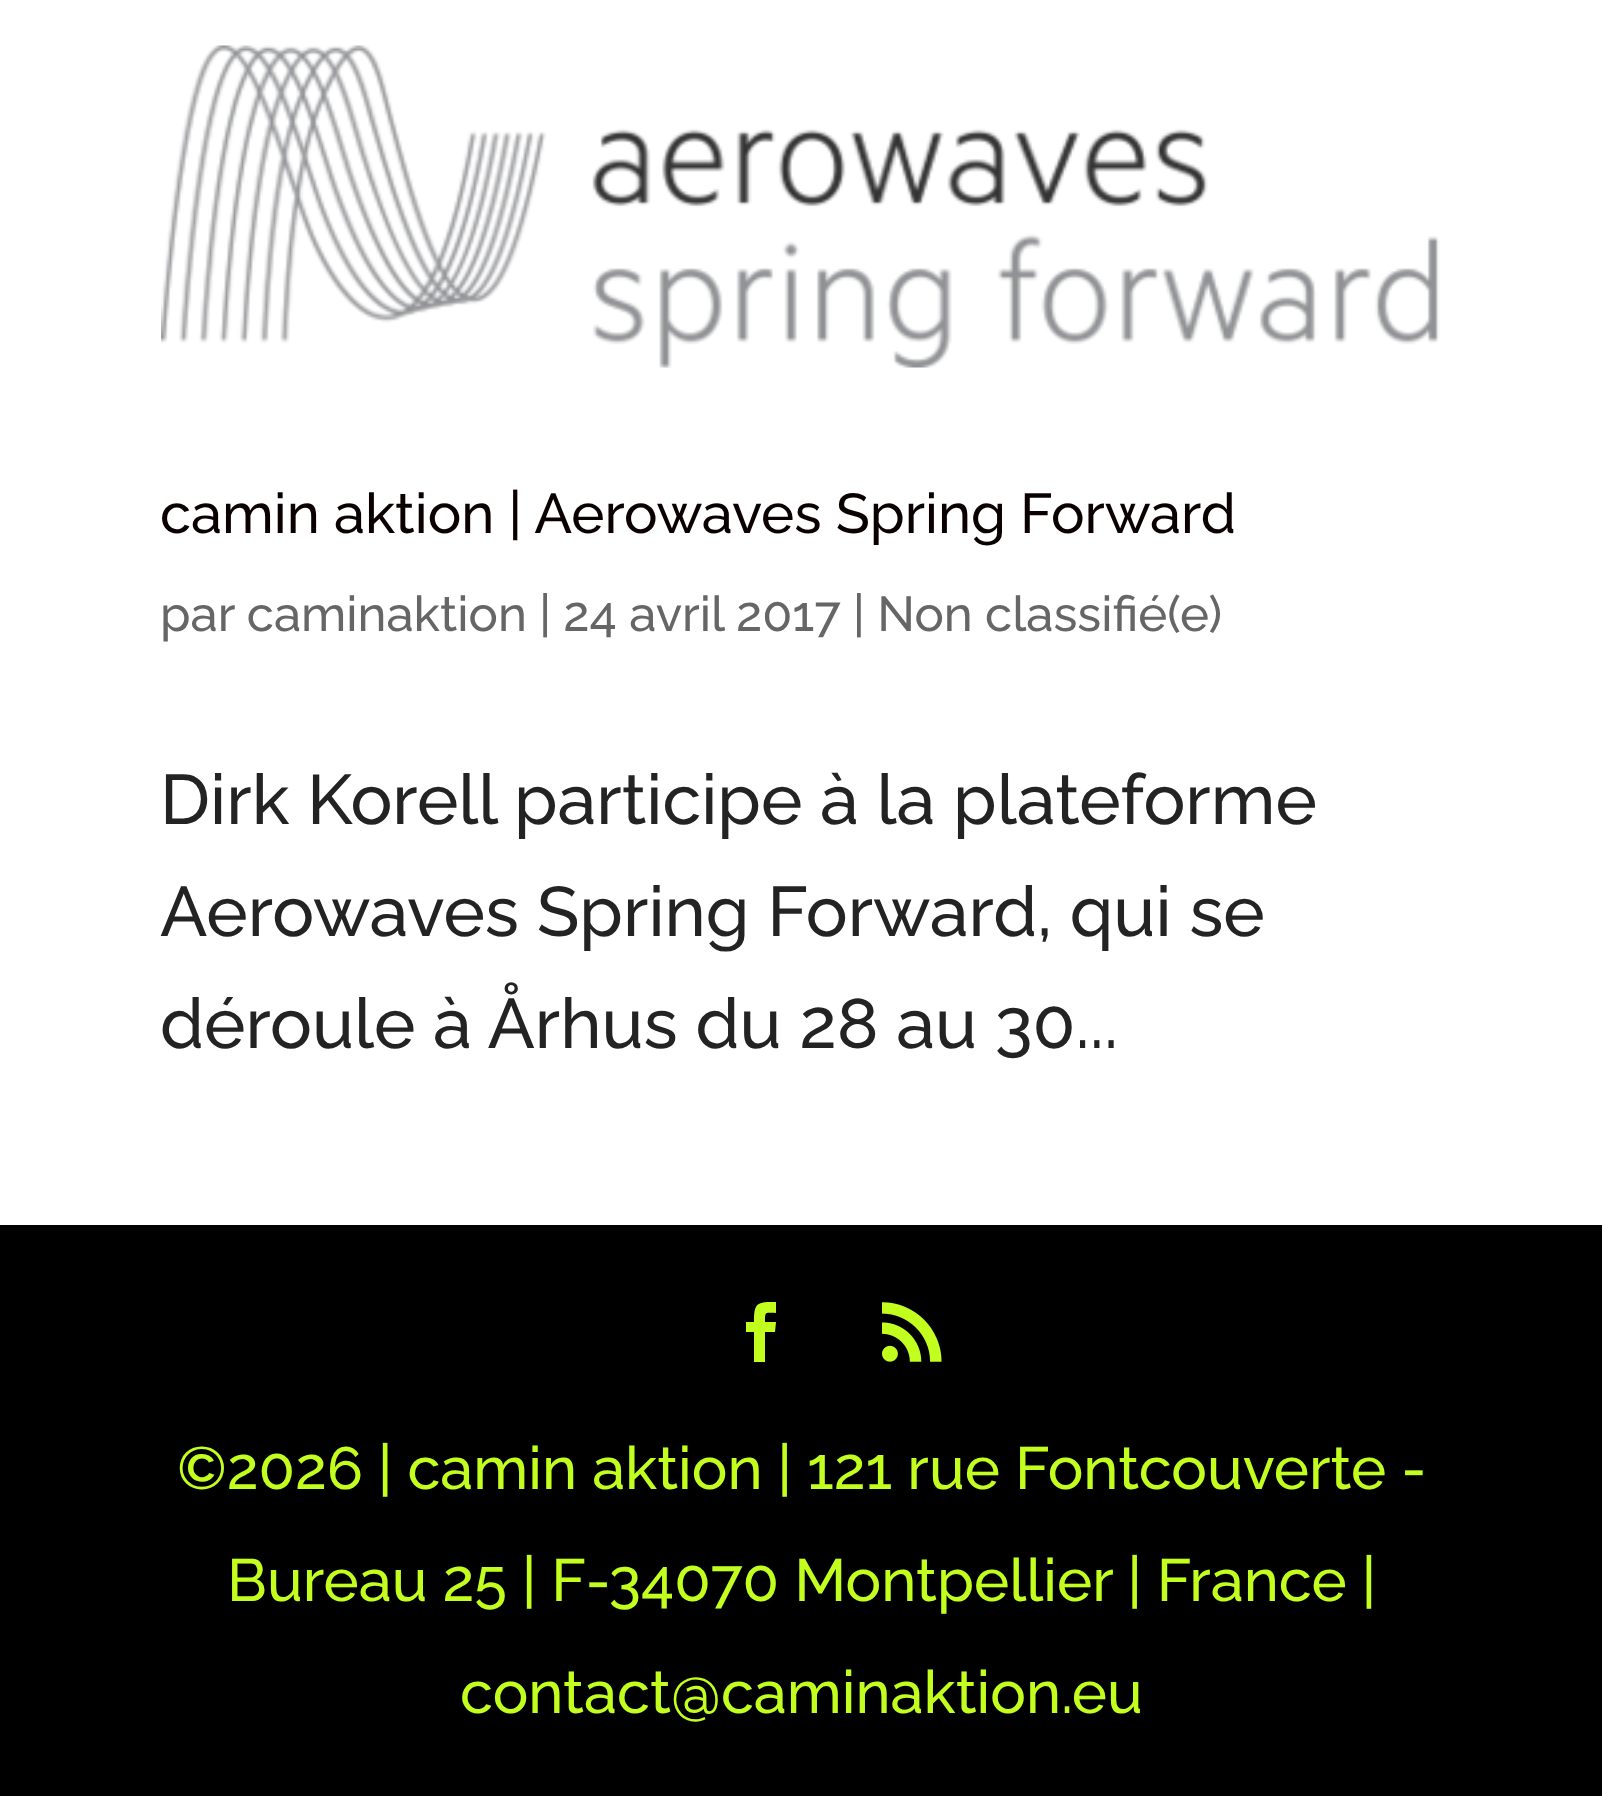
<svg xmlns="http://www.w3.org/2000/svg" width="1602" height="1796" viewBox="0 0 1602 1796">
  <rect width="100%" height="100%" fill="#000000"/>
  <rect x="0" y="0" width="1602" height="1225" fill="#ffffff"/>
  <image x="161" y="45" width="1279" height="323" href="img1.png"/>
  <text x="160" y="533" font-family="Raleway" font-size="56" font-weight="500" fill="#0a0000">camin aktion | Aerowaves Spring Forward</text>
  <text x="160" y="631" font-family="Raleway" font-size="49" font-weight="500" fill="#666666">par caminaktion | 24 avril 2017 | Non classifié(e)</text>
  <text x="160" y="824" font-family="Raleway" font-size="70" font-weight="500" fill="#232323">Dirk Korell participe à la plateforme</text>
  <text x="160" y="936" font-family="Raleway" font-size="70" font-weight="500" fill="#232323">Aerowaves Spring Forward, qui se</text>
  <text x="160" y="1048" font-family="Raleway" font-size="70" font-weight="500" fill="#232323">déroule à Århus du 28 au 30...</text>
  <path d="M754 1362H765V1332H775L776 1322H765C765 1311 765 1313 776 1313V1302C757 1302 754 1302 754 1322H746V1332H754Z" fill="#c3ff1e"/>
  <image x="882" y="1302" width="60" height="60" href="img2.png"/>
  <text x="177" y="1489" font-family="Raleway" font-size="59.5" font-weight="500" fill="#c3ff1e">©2026 | camin aktion | 121 rue Fontcouverte -</text>
  <text x="227" y="1601" font-family="Raleway" font-size="59.5" font-weight="500" fill="#c3ff1e">Bureau 25 | F-34070 Montpellier | France |</text>
  <text x="460" y="1713" font-family="Raleway" font-size="59.5" font-weight="500" fill="#c3ff1e">contact@caminaktion.eu</text>
</svg>
